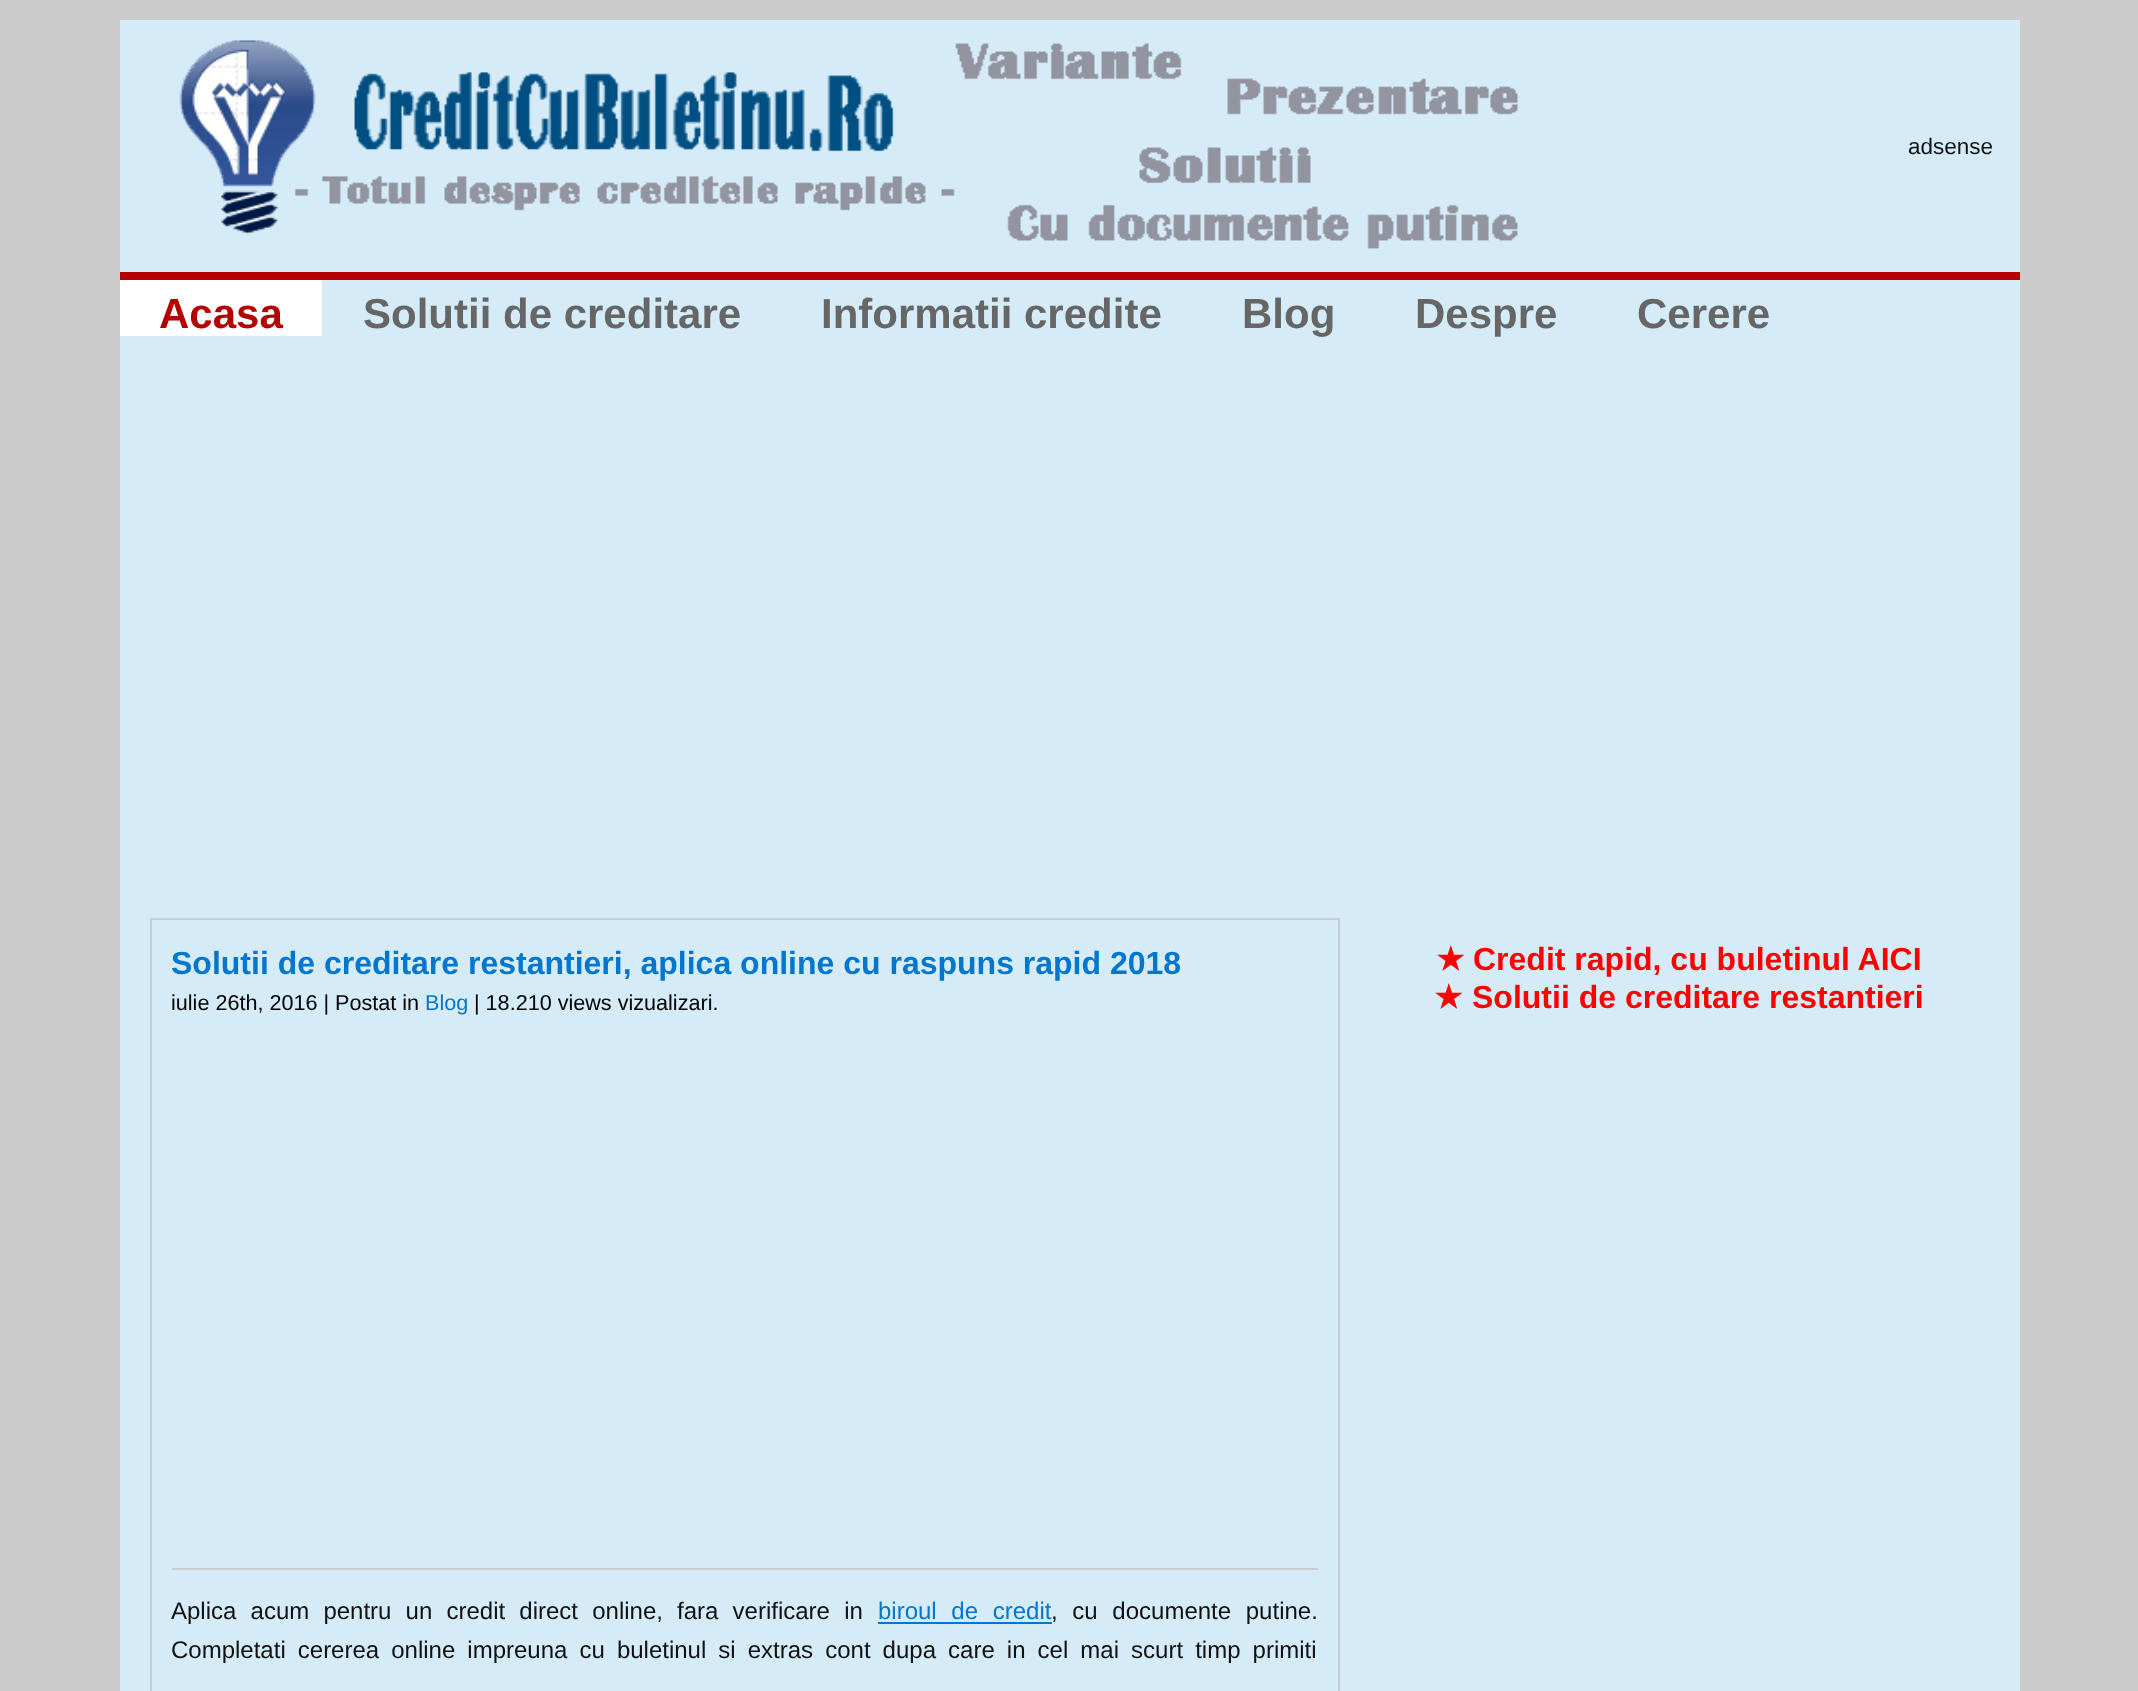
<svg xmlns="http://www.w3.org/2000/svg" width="2138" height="1691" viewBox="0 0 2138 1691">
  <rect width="100%" height="100%" fill="#cccccc"/>
  <rect x="120" y="20" width="1900" height="1671" fill="#d5ecf8"/>
  <image x="179" y="40" width="1339" height="209" href="img1.png"/>
  <text x="1908" y="154" font-family="Liberation Sans" font-size="22.5" fill="#111111">adsense</text>
  <rect x="120" y="272" width="1900" height="8" fill="#b30000"/>
  <rect x="120" y="280" width="202" height="56" fill="#ffffff"/>
  <text x="159" y="328" font-family="Liberation Sans" font-size="42" font-weight="bold" fill="#b30000">Acasa</text>
  <text x="363" y="328" font-family="Liberation Sans" font-size="42" font-weight="bold" fill="#666666">Solutii de creditare</text>
  <text x="821" y="328" font-family="Liberation Sans" font-size="42" font-weight="bold" fill="#666666">Informatii credite</text>
  <text x="1242" y="328" font-family="Liberation Sans" font-size="42" font-weight="bold" fill="#666666">Blog</text>
  <text x="1415" y="328" font-family="Liberation Sans" font-size="42" font-weight="bold" fill="#666666">Despre</text>
  <text x="1637" y="328" font-family="Liberation Sans" font-size="42" font-weight="bold" fill="#666666">Cerere</text>
  <rect x="151" y="919" width="1188" height="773" fill="none" stroke="#cccccc" stroke-width="2"/>
  <text x="171" y="974" font-family="Liberation Sans" font-size="32" font-weight="bold" fill="#0076ce">Solutii de creditare restantieri, aplica online cu raspuns rapid 2018</text>
  <text x="171" y="1010" font-family="Liberation Sans" font-size="21.6" fill="#000000">iulie 26th, 2016 | Postat in</text>
  <text x="425" y="1010" font-family="Liberation Sans" font-size="21.6" fill="#0076ce">Blog</text>
  <text x="474" y="1010" font-family="Liberation Sans" font-size="21.6" fill="#000000">| 18.210 views vizualizari.</text>
  <rect x="172" y="1568" width="1146" height="2" fill="#cccccc"/>
  <text x="171" y="1619" word-spacing="7.5" font-family="Liberation Sans" font-size="24" fill="#111111">Aplica acum pentru un credit direct online, fara verificare in</text>
  <text x="878" y="1619" word-spacing="8" font-family="Liberation Sans" font-size="24" fill="#0076ce">biroul de credit</text>
  <rect x="878" y="1622" width="174" height="2" fill="#0076ce"/>
  <text x="1051" y="1619" word-spacing="8" font-family="Liberation Sans" font-size="24" fill="#111111">, cu documente putine.</text>
  <text x="171" y="1658" word-spacing="5.4" font-family="Liberation Sans" font-size="24" fill="#111111">Completati cererea online impreuna cu buletinul si extras cont dupa care in cel mai scurt timp primiti</text>
  <text x="1436" y="970" font-family="DejaVu Sans" font-size="32" font-weight="bold" fill="#ff0000">★</text>
  <text x="1473" y="970" font-family="Liberation Sans" font-size="32" font-weight="bold" fill="#ff0000">Credit rapid, cu buletinul AICI</text>
  <text x="1434" y="1008" font-family="DejaVu Sans" font-size="32" font-weight="bold" fill="#ff0000">★</text>
  <text x="1472" y="1008" font-family="Liberation Sans" font-size="32" font-weight="bold" fill="#ff0000">Solutii de creditare restantieri</text>
</svg>
